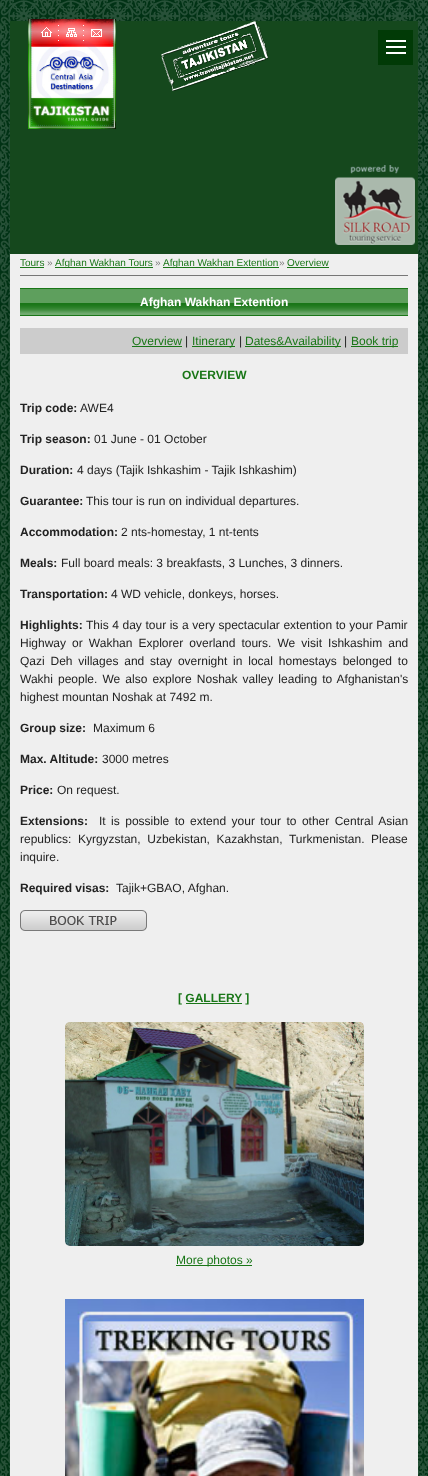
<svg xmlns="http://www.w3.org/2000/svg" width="428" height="1476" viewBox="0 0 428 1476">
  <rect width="100%" height="100%" fill="#ffffff"/>
  <image x="0" y="0" width="428" height="1476" href="img1.png"/>
  <rect x="10" y="21" width="408" height="233" fill="#15481d"/>
  <rect x="378" y="30" width="35" height="35" fill="#013a06"/>
  <rect x="386" y="40" width="20" height="2" fill="#ffffff"/>
  <rect x="386" y="46" width="20" height="2" fill="#ffffff"/>
  <rect x="386" y="52" width="20" height="2" fill="#ffffff"/>
  <image x="28" y="19" width="88" height="110" href="img2.png"/>
  <image x="58" y="25" width="1" height="16" href="img3.png"/>
  <image x="41" y="27" width="11" height="10" href="img4.png"/>
  <image x="83" y="25" width="1" height="16" href="img5.png"/>
  <image x="66" y="28" width="11" height="9" href="img6.png"/>
  <image x="91" y="29" width="11" height="8" href="img7.png"/>
  <image x="161" y="21" width="107" height="70" href="img8.png"/>
  <image x="335" y="165" width="80" height="80" href="img9.png"/>
  <rect x="10" y="254" width="408" height="1222" fill="#efefef"/>
  <rect x="20" y="275" width="388" height="1" fill="#777777"/>
  <text x="20" y="266" font-family="Liberation Sans" font-size="10" fill="#197617">Tours</text>
  <rect x="20" y="267" width="24" height="1" fill="#197617"/>
  <text x="47" y="266" font-family="Liberation Sans" font-size="10" fill="#777777">»</text>
  <rect x="55" y="267" width="98" height="1" fill="#197617"/>
  <text x="55" y="266" font-family="Liberation Sans" font-size="10" fill="#197617">Afghan Wakhan Tours</text>
  <text x="155" y="266" font-family="Liberation Sans" font-size="10" fill="#777777">»</text>
  <rect x="163" y="267" width="116" height="1" fill="#197617"/>
  <text x="163" y="266" font-family="Liberation Sans" font-size="10" fill="#197617">Afghan Wakhan Extention</text>
  <text x="279" y="266" font-family="Liberation Sans" font-size="10" fill="#777777">»</text>
  <text x="287" y="266" font-family="Liberation Sans" font-size="10" fill="#197617">Overview</text>
  <rect x="287" y="267" width="42" height="1" fill="#197617"/>
  <image x="20" y="288" width="388" height="28" href="img10.png"/>
  <text x="140" y="306" font-family="Liberation Sans" font-size="12" font-weight="bold" fill="#ffffff">Afghan Wakhan Extention</text>
  <rect x="20" y="328" width="388" height="26" fill="#cccccc"/>
  <text x="132" y="345" font-family="Liberation Sans" font-size="12" fill="#197617">Overview</text>
  <rect x="132" y="346" width="50" height="1" fill="#197617"/>
  <text x="185" y="345" font-family="Liberation Sans" font-size="12" fill="#222222">|</text>
  <rect x="192" y="346" width="43" height="1" fill="#197617"/>
  <text x="192" y="345" font-family="Liberation Sans" font-size="12" fill="#197617">Itinerary</text>
  <text x="239" y="345" font-family="Liberation Sans" font-size="12" fill="#222222">|</text>
  <rect x="245" y="346" width="96" height="1" fill="#197617"/>
  <text x="245" y="345" font-family="Liberation Sans" font-size="12" fill="#197617">Dates&amp;Availability</text>
  <text x="344" y="345" font-family="Liberation Sans" font-size="12" fill="#222222">|</text>
  <rect x="351" y="346" width="47" height="1" fill="#197617"/>
  <text x="351" y="345" font-family="Liberation Sans" font-size="12" fill="#197617">Book trip</text>
  <text x="182" y="379" font-family="Liberation Sans" font-size="12" font-weight="bold" fill="#197617">OVERVIEW</text>
  <text x="20" y="412" font-family="Liberation Sans" font-size="12" font-weight="bold" fill="#222222">Trip code:</text>
  <text x="80" y="412" font-family="Liberation Sans" font-size="12" fill="#222222">AWE4</text>
  <text x="20" y="443" font-family="Liberation Sans" font-size="12" font-weight="bold" fill="#222222">Trip season:</text>
  <text x="94" y="443" font-family="Liberation Sans" font-size="12" fill="#222222">01 June - 01 October</text>
  <text x="20" y="474" font-family="Liberation Sans" font-size="12" font-weight="bold" fill="#222222">Duration:</text>
  <text x="77" y="474" font-family="Liberation Sans" font-size="12" fill="#222222">4 days (Tajik Ishkashim - Tajik Ishkashim)</text>
  <text x="20" y="505" font-family="Liberation Sans" font-size="12" font-weight="bold" fill="#222222">Guarantee:</text>
  <text x="86" y="505" font-family="Liberation Sans" font-size="12" fill="#222222">This tour is run on individual departures.</text>
  <text x="20" y="536" font-family="Liberation Sans" font-size="12" font-weight="bold" fill="#222222">Accommodation:</text>
  <text x="121" y="536" font-family="Liberation Sans" font-size="12" fill="#222222">2 nts-homestay, 1 nt-tents</text>
  <text x="20" y="567" font-family="Liberation Sans" font-size="12" font-weight="bold" fill="#222222">Meals:</text>
  <text x="61" y="567" font-family="Liberation Sans" font-size="12" fill="#222222">Full board meals: 3 breakfasts, 3 Lunches, 3 dinners.</text>
  <text x="20" y="598" font-family="Liberation Sans" font-size="12" font-weight="bold" fill="#222222">Transportation:</text>
  <text x="111" y="598" font-family="Liberation Sans" font-size="12" fill="#222222">4 WD vehicle, donkeys, horses.</text>
  <text x="20" y="629" font-family="Liberation Sans" font-size="12" font-weight="bold" fill="#222222">Highlights:</text>
  <text x="86" y="629" word-spacing="0.25" font-family="Liberation Sans" font-size="12" fill="#222222">This 4 day tour is a very spectacular extention to your Pamir</text>
  <text x="20" y="647" word-spacing="2.75" font-family="Liberation Sans" font-size="12" fill="#222222">Highway or Wakhan Explorer overland tours. We visit Ishkashim and</text>
  <text x="20" y="665" word-spacing="2.5" font-family="Liberation Sans" font-size="12" fill="#222222">Qazi Deh villages and stay overnight in local homestays belonged to</text>
  <text x="20" y="683" word-spacing="1.75" font-family="Liberation Sans" font-size="12" fill="#222222">Wakhi people. We also explore Noshak valley leading to Afghanistan's</text>
  <text x="20" y="701" font-family="Liberation Sans" font-size="12" fill="#222222">highest mountan Noshak at 7492 m.</text>
  <text x="20" y="732" font-family="Liberation Sans" font-size="12" font-weight="bold" fill="#222222">Group size:</text>
  <text x="93" y="732" font-family="Liberation Sans" font-size="12" fill="#222222">Maximum 6</text>
  <text x="20" y="763" font-family="Liberation Sans" font-size="12" font-weight="bold" fill="#222222">Max. Altitude:</text>
  <text x="102" y="763" font-family="Liberation Sans" font-size="12" fill="#222222">3000 metres</text>
  <text x="20" y="794" font-family="Liberation Sans" font-size="12" font-weight="bold" fill="#222222">Price:</text>
  <text x="57" y="794" font-family="Liberation Sans" font-size="12" fill="#222222">On request.</text>
  <text x="20" y="825" font-family="Liberation Sans" font-size="12" font-weight="bold" fill="#222222">Extensions:</text>
  <text x="99" y="825" word-spacing="2.1" font-family="Liberation Sans" font-size="12" fill="#222222">It is possible to extend your tour to other Central Asian</text>
  <text x="20" y="843" word-spacing="3.25" font-family="Liberation Sans" font-size="12" fill="#222222">republics: Kyrgyzstan, Uzbekistan, Kazakhstan, Turkmenistan. Please</text>
  <text x="20" y="861" font-family="Liberation Sans" font-size="12" fill="#222222">inquire.</text>
  <text x="20" y="892" font-family="Liberation Sans" font-size="12" font-weight="bold" fill="#222222">Required visas:</text>
  <text x="116" y="892" font-family="Liberation Sans" font-size="12" fill="#222222">Tajik+GBAO, Afghan.</text>
  <image x="20" y="910" width="127" height="21" href="img11.png"/>
  <text x="178" y="1002" font-family="Liberation Sans" font-size="12" font-weight="bold" fill="#197617">[ GALLERY ]</text>
  <rect x="186" y="1003" width="56" height="1" fill="#197617"/>
  <image x="65" y="1022" width="299" height="224" href="img12.png"/>
  <rect x="176" y="1265" width="76" height="1" fill="#197617"/>
  <text x="176" y="1264" font-family="Liberation Sans" font-size="12" fill="#197617">More photos »</text>
  <image x="65" y="1299" width="299" height="177" href="img13.png"/>
</svg>
